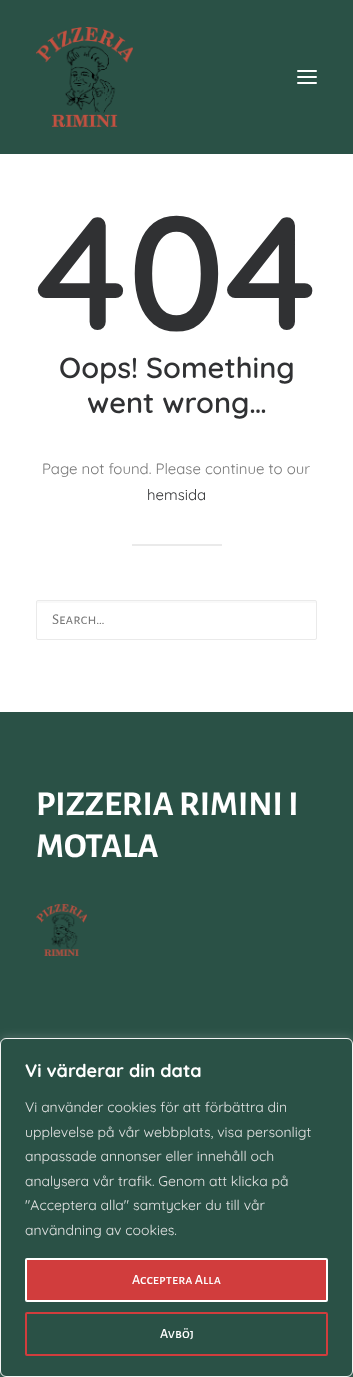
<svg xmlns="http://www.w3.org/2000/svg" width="353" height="1377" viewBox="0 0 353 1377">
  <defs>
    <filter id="blur1" x="-50%" y="-200%" width="200%" height="500%"><feGaussianBlur stdDeviation="5"/></filter>
  </defs>
  <rect width="100%" height="100%" fill="#ffffff"/>
  <rect x="0" y="0" width="353" height="154" fill="#2a5146"/>
  <image x="36" y="27" width="97" height="100" href="img1.png"/>
  <rect x="297" y="76" width="20" height="2" rx="1" fill="#ffffff"/>
  <rect x="297" y="70" width="20" height="2" rx="1" fill="#ffffff"/>
  <rect x="297" y="82" width="20" height="2" rx="1" fill="#ffffff"/>
  <text x="36" y="330" font-family="Quicksand" font-size="161" font-weight="600" fill="#303133">404</text>
  <text x="59" y="378" font-family="Quicksand" font-size="29" font-weight="600" fill="#303133">Oops! Something</text>
  <text x="87" y="413" font-family="Quicksand" font-size="29" font-weight="600" fill="#303133">went wrong…</text>
  <text x="42" y="474" font-family="Quicksand" font-size="15" fill="#777777">Page not found. Please continue to our</text>
  <text x="147" y="500" font-family="Quicksand" font-size="15" fill="#303133">hemsida</text>
  <rect x="132" y="544" width="90" height="2" fill="#eaeaea"/>
  <path d="M38 603H316C316 602 316 601 315 601H38C37 601 37 603 37 604Z" fill="#f9f9f9"/>
  <rect x="36.5" y="600.5" width="280" height="39" rx="1.5" fill="none" stroke="#eaeaea"/>
  <text x="52" y="624" font-family="Alegreya Sans SC" font-size="15" fill="#777777">Search…</text>
  <rect x="0" y="712" width="353" height="665" fill="#2a5146"/>
  <text x="36" y="815" font-family="Alegreya Sans SC" font-size="35" font-weight="bold" fill="#ffffff">PIZZERIA RIMINI I</text>
  <text x="36" y="857" font-family="Alegreya Sans SC" font-size="35" font-weight="bold" fill="#ffffff">MOTALA</text>
  <image x="36" y="904" width="51" height="52" href="img2.png"/>
  <rect x="0" y="1037" width="353" height="339" rx="6" fill="#acabab" fill-opacity="0.3" filter="url(#blur1)"/>
  <rect x="0.5" y="1038.5" width="352" height="338" rx="5.5" fill="#2a5146" stroke="#f4f4f4"/>
  <text x="25" y="1077" font-family="Quicksand" font-size="18" font-weight="bold" fill="#ffffff">Vi värderar din data</text>
  <text x="25" y="1112" font-family="Quicksand" font-size="14" fill="#e4e4e4">Vi använder cookies för att förbättra din</text>
  <text x="25" y="1137" font-family="Quicksand" font-size="14" fill="#e4e4e4">upplevelse på vår webbplats, visa personligt</text>
  <text x="25" y="1161" font-family="Quicksand" font-size="14" fill="#e4e4e4">anpassade annonser eller innehåll och</text>
  <text x="25" y="1186" font-family="Quicksand" font-size="14" fill="#e4e4e4">analysera vår trafik. Genom att klicka på</text>
  <text x="25" y="1210" font-family="Quicksand" font-size="14" fill="#e4e4e4">"Acceptera alla" samtycker du till vår</text>
  <text x="25" y="1235" font-family="Quicksand" font-size="14" fill="#e4e4e4">användning av cookies.</text>
  <rect x="26" y="1259" width="301" height="42" rx="1" fill="#d13d3d" stroke="#ffffff" stroke-width="2"/>
  <text x="132" y="1284" font-family="Alegreya Sans SC" font-size="14" font-weight="500" fill="#ffffff">Acceptera Alla</text>
  <rect x="26" y="1313" width="301" height="42" rx="1" fill="none" stroke="#d13d3d" stroke-width="2"/>
  <text x="160" y="1338" font-family="Alegreya Sans SC" font-size="14" font-weight="500" fill="#ffffff">Avböj</text>
</svg>
